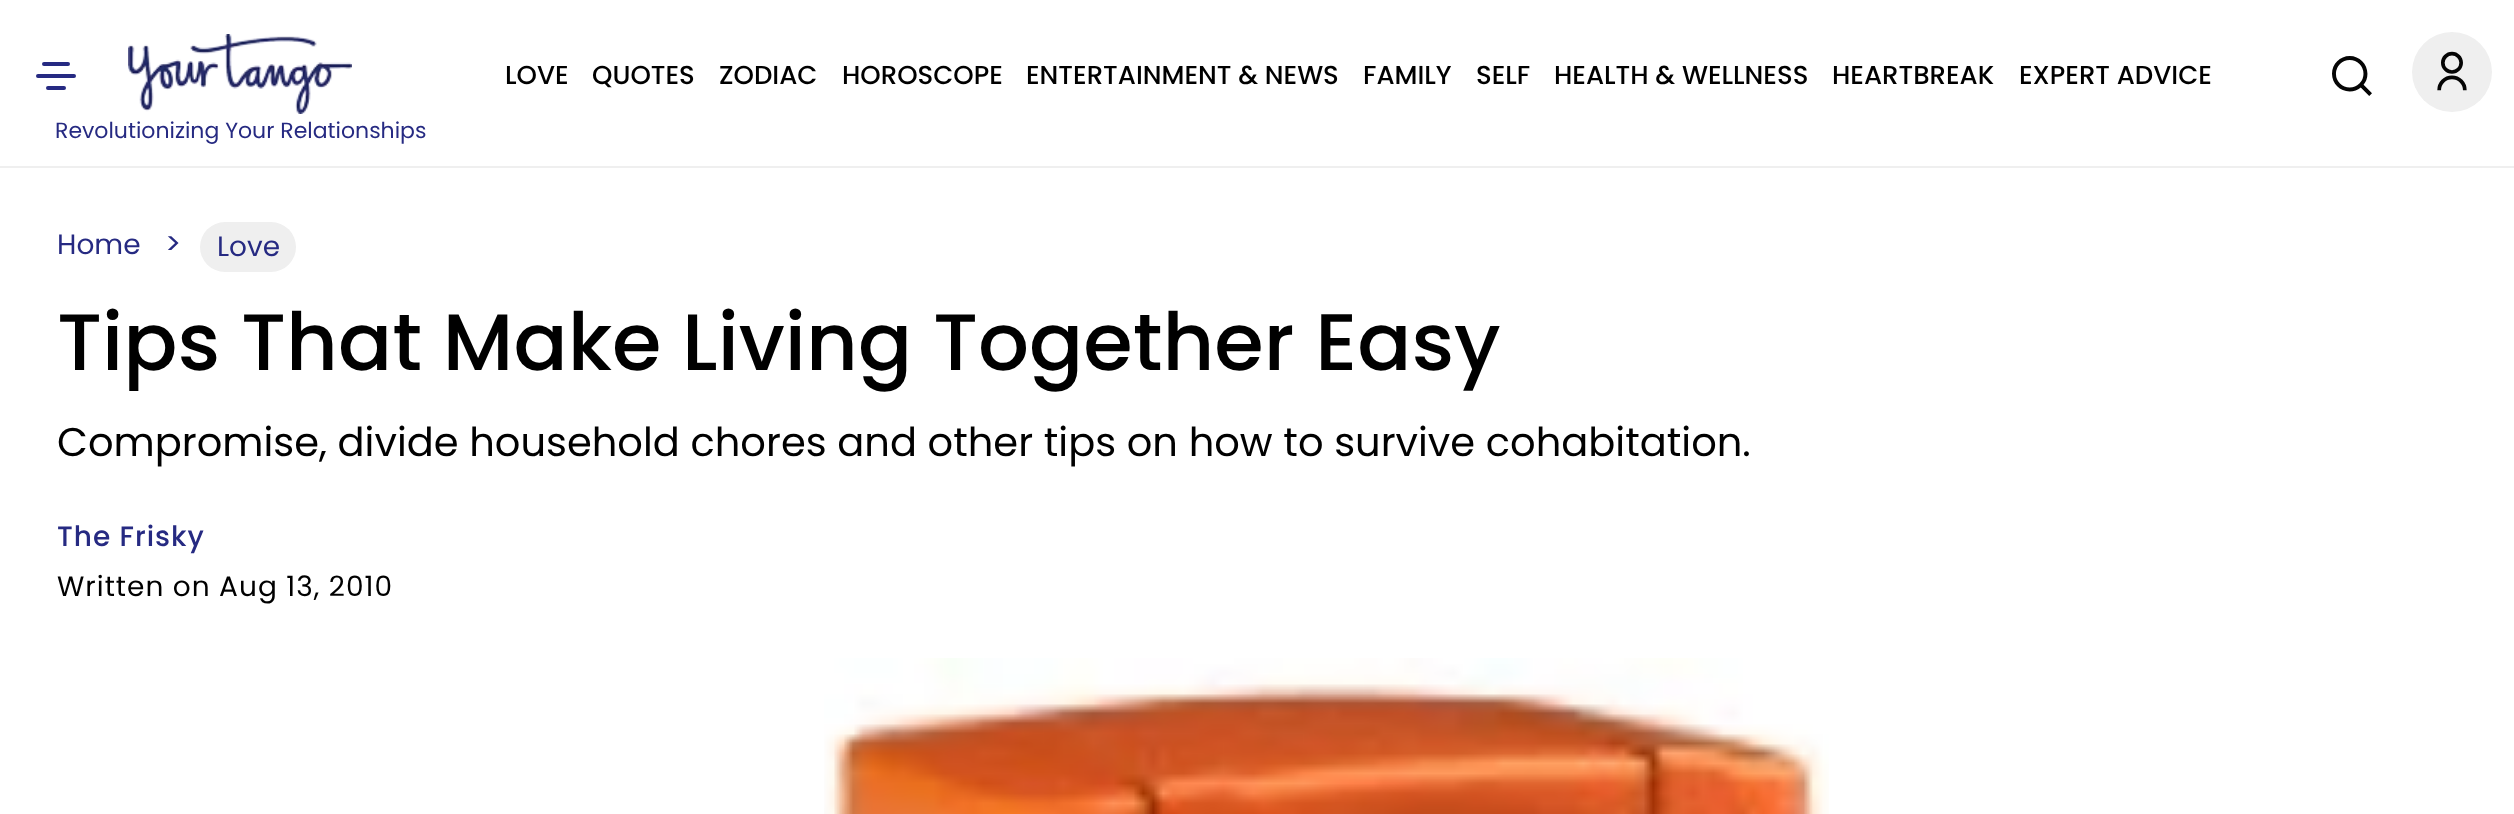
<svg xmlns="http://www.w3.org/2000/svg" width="2514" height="814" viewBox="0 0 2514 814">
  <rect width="100%" height="100%" fill="#ffffff"/>
  <rect x="0" y="166" width="2514" height="2" fill="#efefef"/>
  <image x="36" y="62" width="40" height="28" href="img1.png"/>
  <text x="505" y="84" font-family="Poppins" font-size="26" font-weight="500" fill="#000000">LOVE</text>
  <text x="592" y="84" font-family="Poppins" font-size="26" font-weight="500" fill="#000000">QUOTES</text>
  <text x="719" y="84" font-family="Poppins" font-size="26" font-weight="500" fill="#000000">ZODIAC</text>
  <text x="842" y="84" font-family="Poppins" font-size="26" font-weight="500" fill="#000000">HOROSCOPE</text>
  <text x="1026" y="84" font-family="Poppins" font-size="26" font-weight="500" fill="#000000">ENTERTAINMENT &amp; NEWS</text>
  <text x="1363" y="84" font-family="Poppins" font-size="26" font-weight="500" fill="#000000">FAMILY</text>
  <text x="1476" y="84" font-family="Poppins" font-size="26" font-weight="500" fill="#000000">SELF</text>
  <text x="1554" y="84" font-family="Poppins" font-size="26" font-weight="500" fill="#000000">HEALTH &amp; WELLNESS</text>
  <text x="1832" y="84" font-family="Poppins" font-size="26" font-weight="500" fill="#000000">HEARTBREAK</text>
  <text x="2019" y="84" font-family="Poppins" font-size="26" font-weight="500" fill="#000000">EXPERT ADVICE</text>
  <image x="2332" y="56" width="40" height="40" href="img2.png"/>
  <image x="2412" y="32" width="80" height="80" href="img3.png"/>
  <image x="128" y="34" width="224" height="80" href="img4.png"/>
  <text x="55" y="138" font-family="Poppins" font-size="22" fill="#262a82">Revolutionizing Your Relationships</text>
  <text x="57" y="254" font-family="Poppins" font-size="28" fill="#262a82">Home</text>
  <text x="165" y="254" font-family="Poppins" font-size="30" fill="#262a82">&gt;</text>
  <rect x="200" y="222" width="96" height="50" rx="25" fill="#efefef"/>
  <text x="217" y="256" font-family="Poppins" font-size="28" fill="#262a82">Love</text>
  <text x="57" y="370" font-family="Poppins" font-size="80" font-weight="500" fill="#000000">Tips That Make Living Together Easy</text>
  <text x="57" y="456" font-family="Poppins" font-size="40" fill="#000000">Compromise, divide household chores and other tips on how to survive cohabitation.</text>
  <text x="57" y="546" font-family="Poppins" font-size="28" font-weight="500" letter-spacing="1" fill="#262a82">The Frisky</text>
  <text x="57" y="596" font-family="Poppins" font-size="28" letter-spacing="1" fill="#000000">Written on Aug 13, 2010</text>
  <image x="824" y="658" width="1005" height="156" href="img5.png"/>
</svg>
